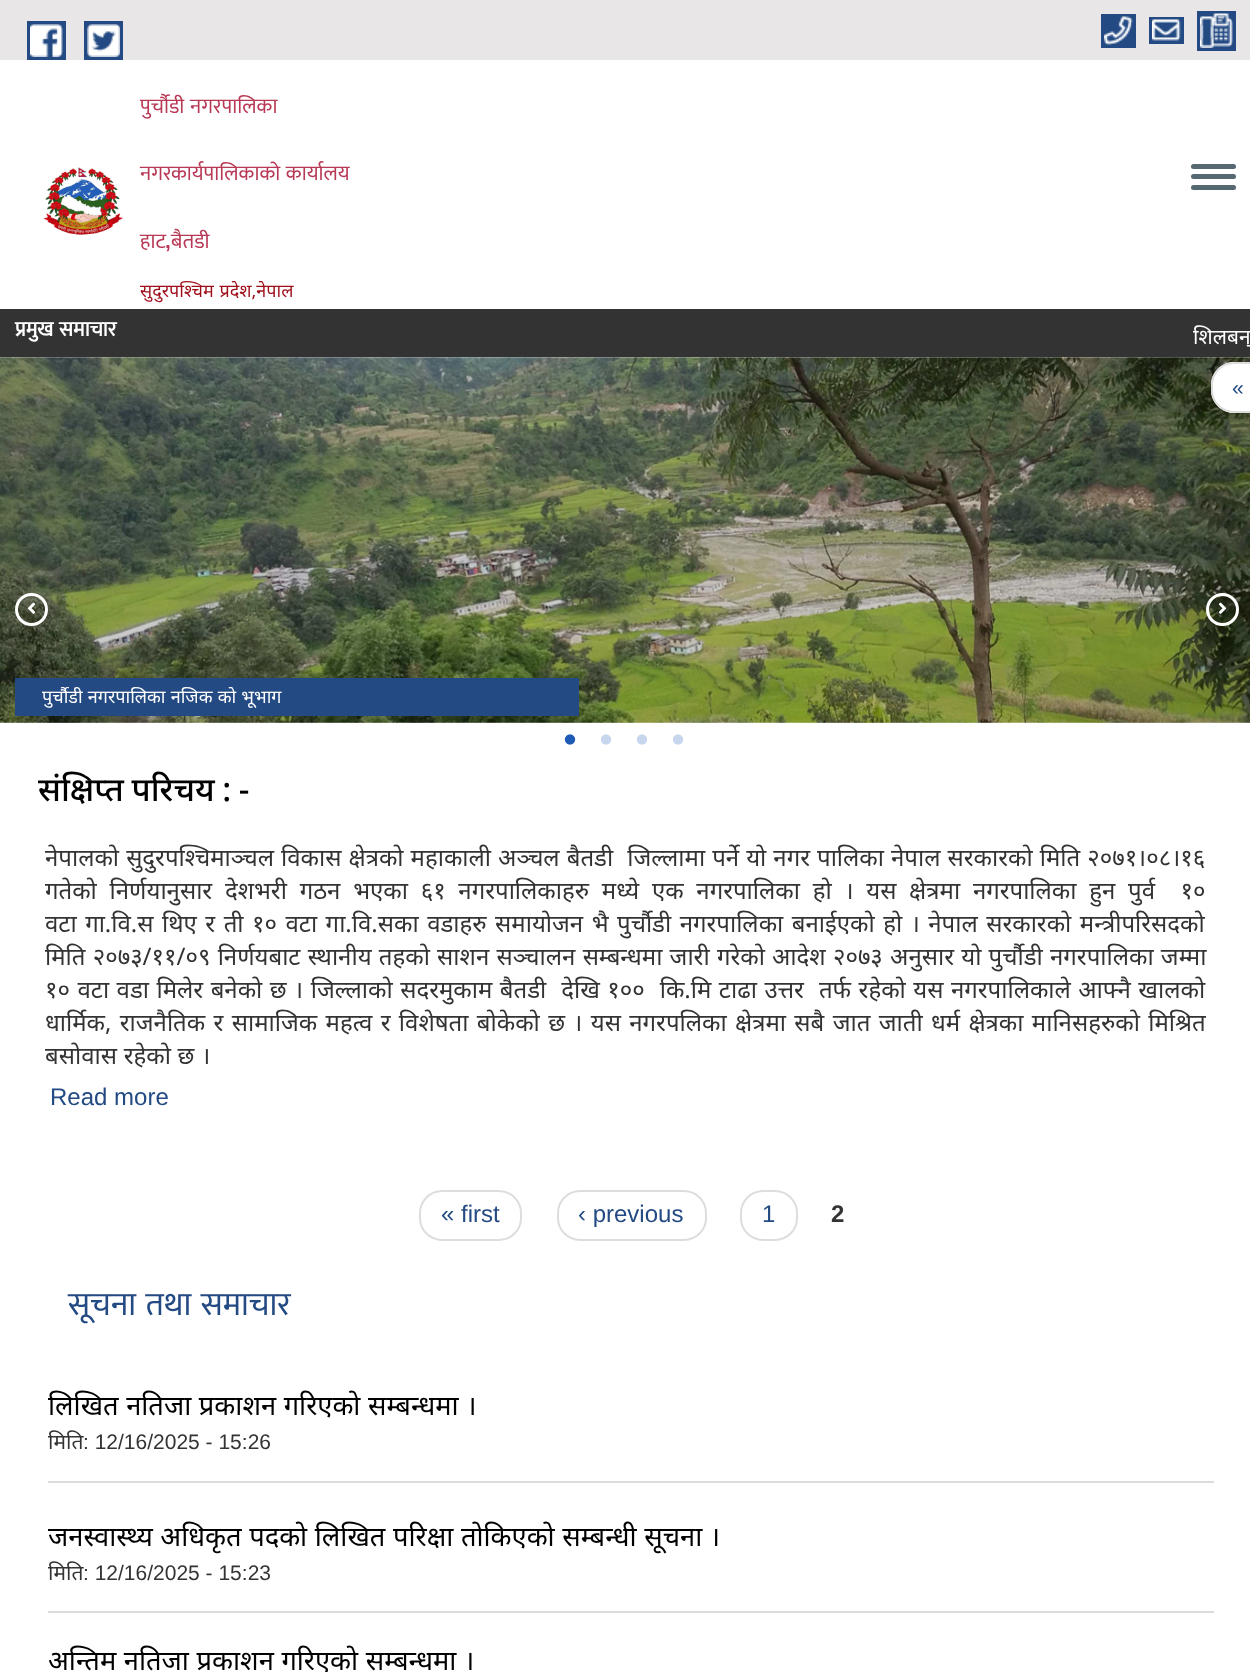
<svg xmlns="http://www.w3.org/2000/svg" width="1250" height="1672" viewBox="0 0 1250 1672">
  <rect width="100%" height="100%" fill="#ffffff"/>
  <rect x="0" y="0" width="1250" height="60" fill="#e8e6e6"/>
  <rect x="27" y="21" width="39" height="39" fill="#234a83"/>
  <rect x="84" y="21" width="39" height="39" fill="#234a83"/>
  <image x="30" y="24" width="33" height="33" href="img1.png"/>
  <image x="87" y="24" width="33" height="33" href="img2.png"/>
  <rect x="1197" y="11" width="39" height="40" fill="#234a83"/>
  <rect x="1101" y="14" width="35" height="34" fill="#234a83"/>
  <image x="1200" y="13" width="33" height="35" href="img3.png"/>
  <image x="1104" y="16" width="29" height="29" href="img4.png"/>
  <rect x="1149" y="17" width="35" height="27" fill="#234a83"/>
  <image x="1152" y="19" width="29" height="22" href="img5.png"/>
  <image x="43" y="167" width="80" height="68" href="img6.png"/>
  <text x="140" y="113" word-spacing="1" font-family="Mukta" font-size="21" fill="#b83955">पुर्चौडी नगरपालिका</text>
  <text x="140" y="180" word-spacing="1" font-family="Mukta" font-size="21" fill="#b83955">नगरकार्यपालिकाकाे कार्यालय</text>
  <text x="140" y="248" font-family="Mukta" font-size="21" fill="#b83955">हाट</text>
  <text x="165" y="248" font-family="Liberation Sans" font-size="21" font-weight="bold" fill="#b83955">,</text>
  <text x="171" y="248" font-family="Mukta" font-size="21" fill="#b83955">बैतडी</text>
  <text x="140" y="297" word-spacing="1" font-family="Noto Sans" font-size="18" fill="#9e0c18">सुदुरपश्चिम प्रदेश,नेपाल</text>
  <rect x="1191" y="164" width="45" height="5" rx="2.5" fill="#566973"/>
  <rect x="1191" y="174" width="45" height="5" rx="2.5" fill="#566973"/>
  <rect x="1191" y="185" width="45" height="5" rx="2.5" fill="#566973"/>
  <rect x="0" y="309" width="1250" height="48" fill="#333333"/>
  <text x="15" y="336" word-spacing="1" font-family="Mukta" font-size="21" font-weight="bold" fill="#ffffff">प्रमुख समाचार</text>
  <text x="1193" y="344" font-family="Noto Sans" font-size="21" fill="#ffffff">शिलबन्</text>
  <image x="0" y="357" width="1250" height="366" href="img9.png"/>
  <path d="M1234 362H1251V413H1234C1221.5 413 1211 402.5 1211 390V385C1211 372.5 1221.5 362 1234 362Z" fill="#ffffff"/>
  <rect x="1212" y="363" width="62" height="49" rx="22" fill="none" stroke="#dddddd" stroke-width="2"/>
  <text x="1232" y="395" font-family="Liberation Sans" font-size="21" fill="#234a83">«</text>
  <circle cx="31.5" cy="609.5" r="15" fill="none" stroke="#ffffff" stroke-width="3"/>
  <image x="27" y="602" width="9" height="12" href="img7.png"/>
  <circle cx="1222.5" cy="609.5" r="15" fill="none" stroke="#ffffff" stroke-width="3"/>
  <image x="1218" y="602" width="9" height="12" href="img8.png"/>
  <rect x="15" y="678" width="564" height="38" fill="#234a83"/>
  <text x="42" y="703" word-spacing="0.5" font-family="Noto Sans" font-size="18" fill="#ffffff">पुर्चौडी नगरपालिका नजिक को भूभाग</text>
  <image x="564" y="734" width="12" height="11" href="img10.png"/>
  <image x="600" y="734" width="12" height="11" href="img11.png"/>
  <image x="636" y="734" width="12" height="11" href="img11.png"/>
  <image x="672" y="734" width="12" height="11" href="img11.png"/>
  <text x="38" y="801" word-spacing="-1" font-family="Noto Sans" font-size="33" font-weight="500" fill="#000000">संक्षिप्त परिचय : -</text>
  <text x="45" y="866" word-spacing="0.8" font-family="Noto Sans" font-size="24" fill="#333333" xml:space="preserve">नेपालको सुदुरपश्चिमाञ्चल विकास क्षेत्रको महाकाली अञ्चल बैतडी  जिल्लामा पर्ने यो नगर पालिका नेपाल सरकारको मिति २०७१।०८।१६</text>
  <text x="45" y="899" word-spacing="6.5" font-family="Noto Sans" font-size="24" fill="#333333" xml:space="preserve">गतेको निर्णयानुसार देशभरी गठन भएका ६१ नगरपालिकाहरु मध्ये एक नगरपालिका हो । यस क्षेत्रमा नगरपालिका हुन पुर्व  १०</text>
  <text x="45" y="932" word-spacing="2.25" font-family="Noto Sans" font-size="24" fill="#333333">वटा गा.वि.स थिए र ती १० वटा गा.वि.सका वडाहरु समायोजन भै पुर्चौडी नगरपालिका बनाईएको हो । नेपाल सरकारको मन्त्रीपरिसदको</text>
  <text x="45" y="965" word-spacing="1" font-family="Noto Sans" font-size="24" fill="#333333">मिति २०७३/११/०९ निर्णयबाट स्थानीय तहको साशन सञ्चालन सम्बन्धमा जारी गरेको आदेश २०७३ अनुसार यो पुर्चौडी नगरपालिका जम्मा</text>
  <text x="45" y="998" word-spacing="1.25" font-family="Noto Sans" font-size="24" fill="#333333" xml:space="preserve">१० वटा वडा मिलेर बनेको छ । जिल्लाको सदरमुकाम बैतडी  देखि १००  कि.मि टाढा उत्तर  तर्फ रहेको यस नगरपालिकाले आफ्नै खालको</text>
  <text x="45" y="1031" word-spacing="2.1" font-family="Noto Sans" font-size="24" fill="#333333">धार्मिक, राजनैतिक र सामाजिक महत्व र विशेषता बोकेको छ । यस नगरपलिका क्षेत्रमा सबै जात जाती धर्म क्षेत्रका मानिसहरुको मिश्रित</text>
  <text x="45" y="1064" word-spacing="0.5" font-family="Noto Sans" font-size="24" fill="#333333">बसोवास रहेको छ ।</text>
  <text x="50" y="1105" font-family="Liberation Sans" font-size="24" fill="#234a83">Read more</text>
  <rect x="420" y="1191" width="101" height="49" rx="22" fill="none" stroke="#dddddd" stroke-width="2"/>
  <text x="441" y="1222" font-family="Liberation Sans" font-size="24" fill="#234a83">« first</text>
  <rect x="558" y="1191" width="148" height="49" rx="22" fill="none" stroke="#dddddd" stroke-width="2"/>
  <text x="578" y="1222" font-family="Liberation Sans" font-size="24" fill="#234a83">‹ previous</text>
  <rect x="741" y="1191" width="56" height="49" rx="22" fill="none" stroke="#dddddd" stroke-width="2"/>
  <text x="762" y="1222" font-family="Liberation Sans" font-size="24" fill="#234a83">1</text>
  <text x="831" y="1222" font-family="Liberation Sans" font-size="24" font-weight="bold" fill="#333333">2</text>
  <text x="68" y="1315" word-spacing="2" font-family="Mukta" font-size="33" fill="#234a83">सूचना तथा समाचार</text>
  <rect x="48" y="1481" width="1166" height="2" fill="#daddd8"/>
  <text x="48" y="1415" word-spacing="0.5" font-family="Noto Sans" font-size="27.3" fill="#000000">लिखित नतिजा प्रकाशन गरिएको सम्बन्धमा ।</text>
  <text x="48" y="1449" font-family="Noto Sans" font-size="21" fill="#333333">मिति</text>
  <text x="83" y="1449" font-family="Liberation Sans" font-size="21" fill="#333333">: 12/16/2025 - 15:26</text>
  <rect x="48" y="1611" width="1166" height="2" fill="#daddd8"/>
  <text x="48" y="1546" word-spacing="0.5" font-family="Noto Sans" font-size="27.3" fill="#000000">जनस्वास्थ्य अधिकृत पदको लिखित परिक्षा तोकिएको सम्बन्धी सूचना ।</text>
  <text x="48" y="1580" font-family="Noto Sans" font-size="21" fill="#333333">मिति</text>
  <text x="83" y="1580" font-family="Liberation Sans" font-size="21" fill="#333333">: 12/16/2025 - 15:23</text>
  <text x="48" y="1670" word-spacing="0.5" font-family="Noto Sans" font-size="27.3" fill="#000000">अन्तिम नतिजा प्रकाशन गरिएकाे सम्बन्धमा ।</text>
</svg>
